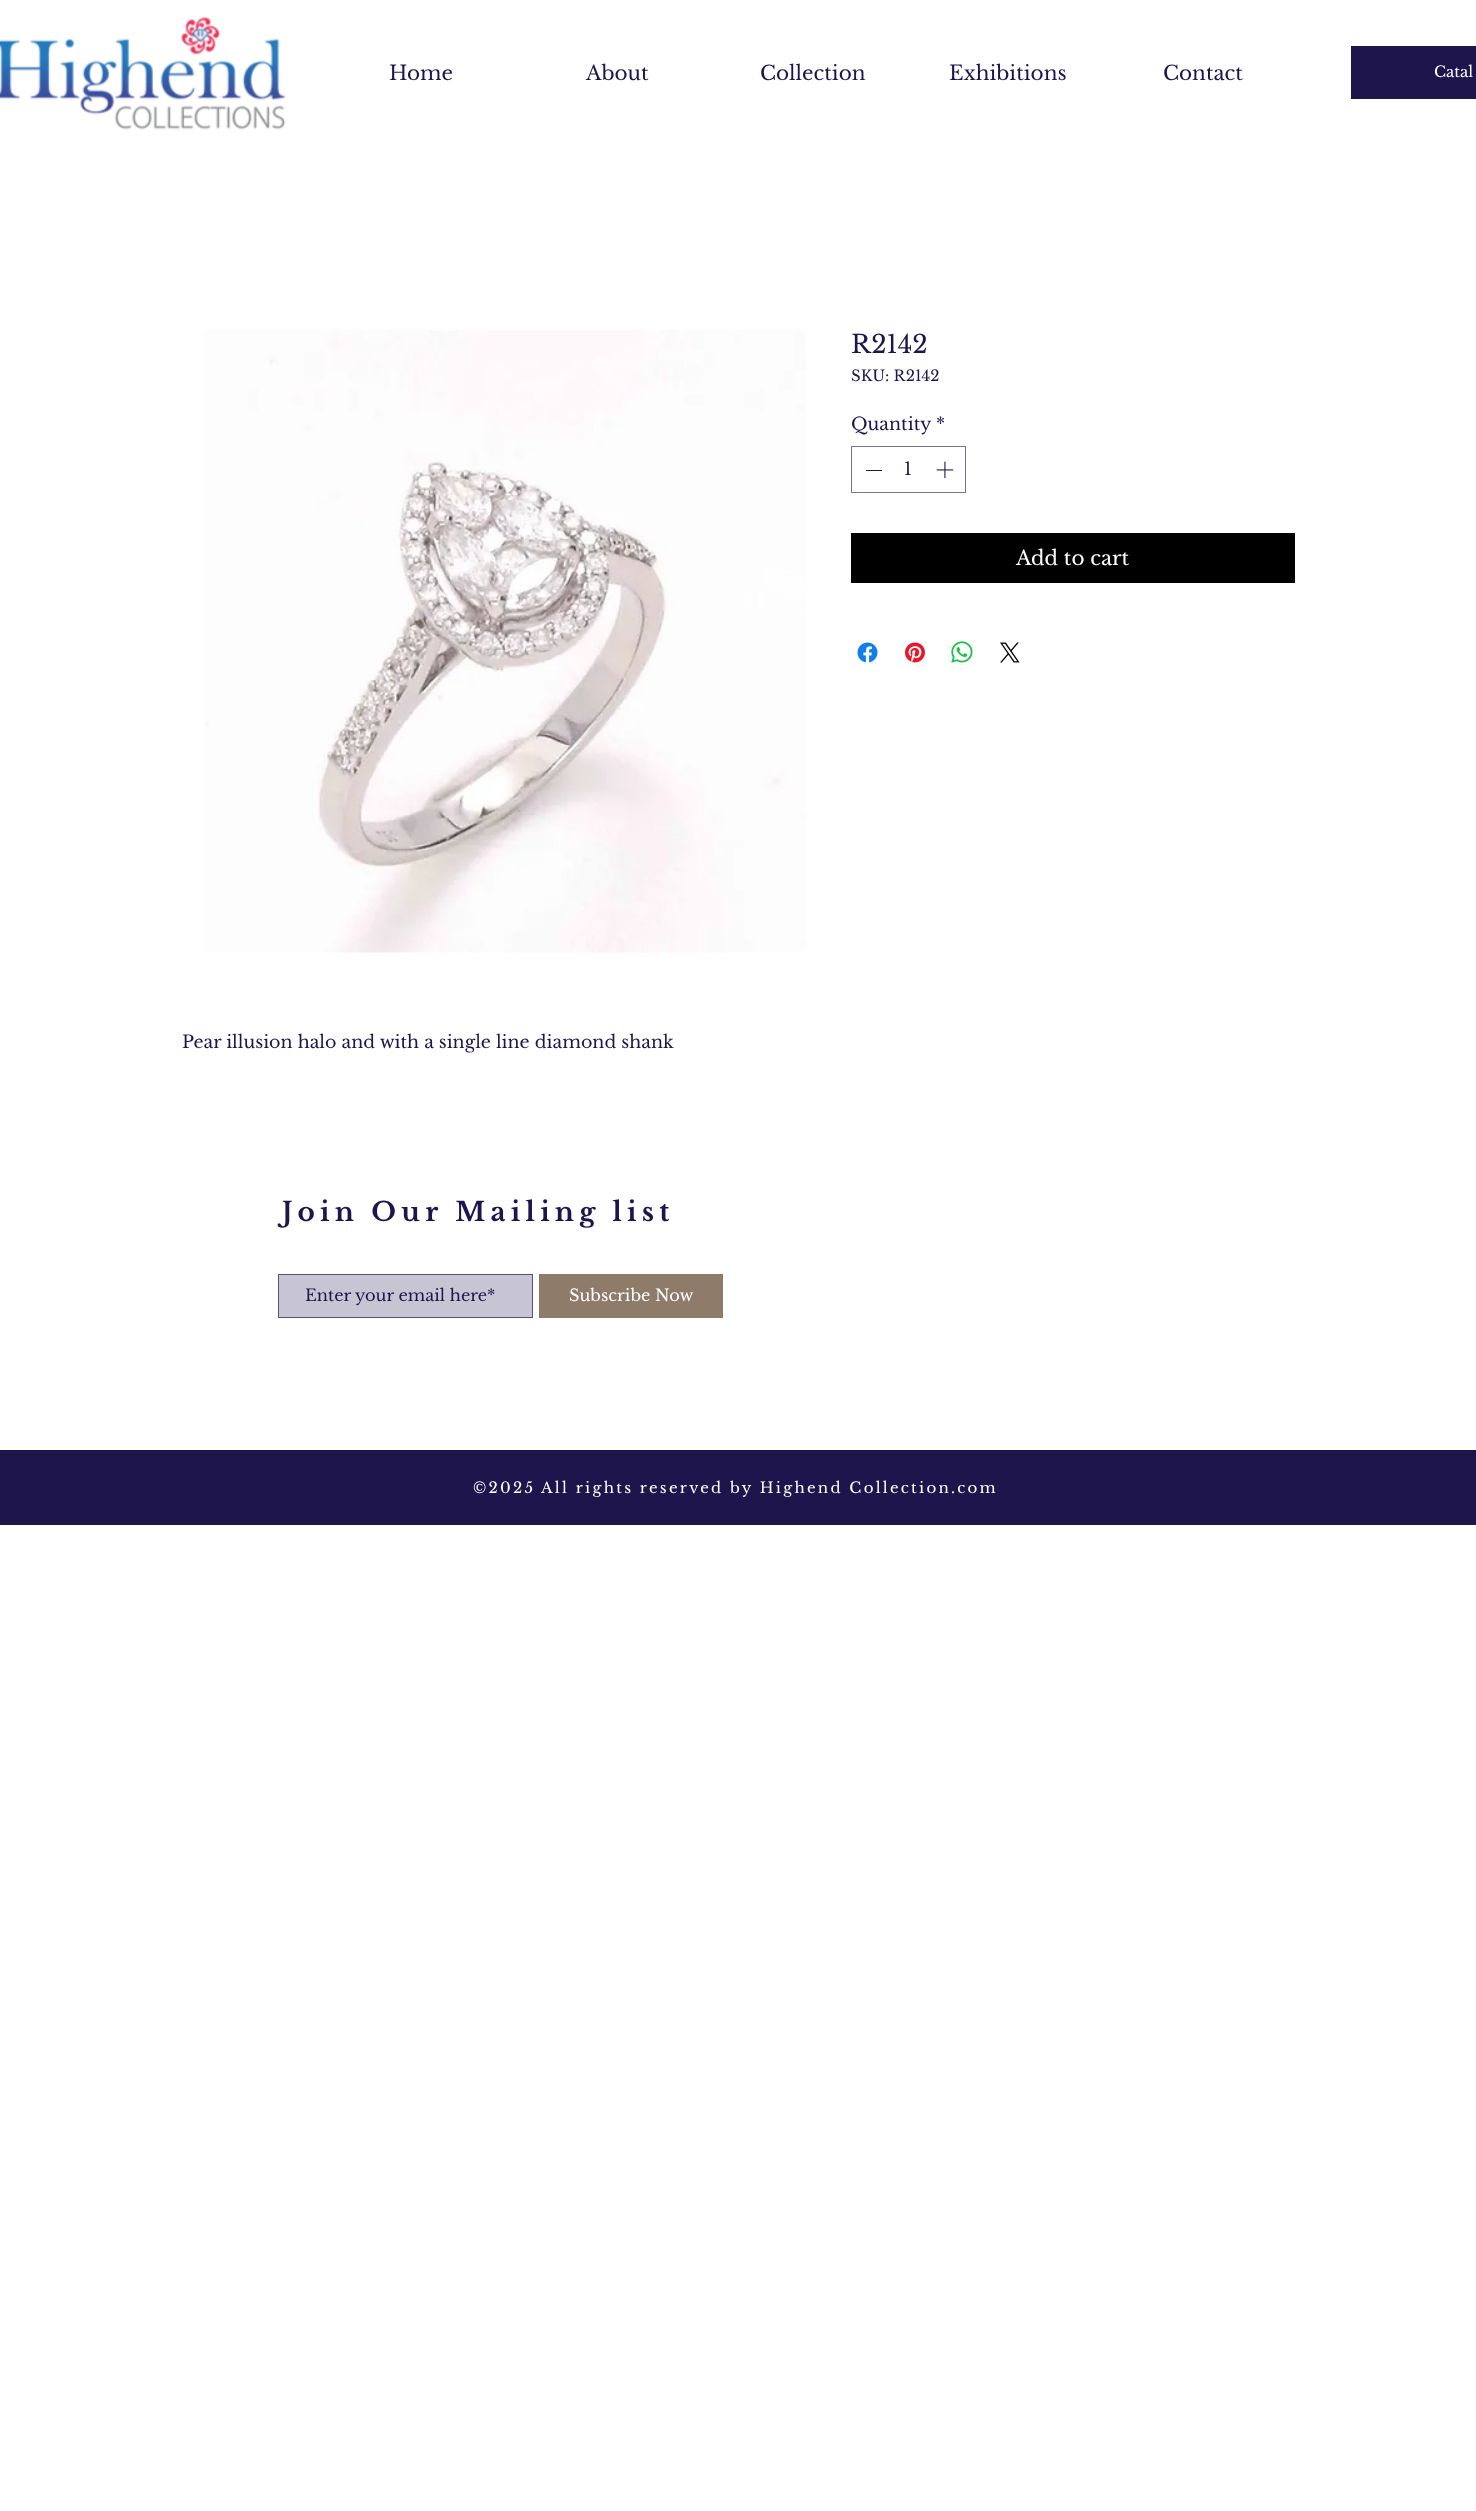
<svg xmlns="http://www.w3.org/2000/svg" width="1476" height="2511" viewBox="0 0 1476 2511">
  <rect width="100%" height="100%" fill="#ffffff"/>
  <image x="0" y="17" width="286" height="113" href="img1.png"/>
  <text x="389" y="80" font-family="'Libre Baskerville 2'" font-size="20" fill="#1e154d">Home</text>
  <text x="586" y="80" font-family="'Libre Baskerville 2'" font-size="20" fill="#1e154d">About</text>
  <text x="760" y="80" font-family="'Libre Baskerville 2'" font-size="20" fill="#1e154d">Collection</text>
  <text x="949" y="80" font-family="'Libre Baskerville 2'" font-size="20" fill="#1e154d">Exhibitions</text>
  <text x="1163" y="80" font-family="'Libre Baskerville 2'" font-size="20" fill="#1e154d">Contact</text>
  <rect x="1351" y="46" width="125" height="53" fill="#1e154d"/>
  <text x="1434" y="77" font-family="Libre Baskerville" font-size="15" fill="#ffffff">Catal</text>
  <text x="851" y="353" font-family="Libre Baskerville" font-size="25" fill="#1e154d">R2142</text>
  <text x="851" y="381" font-family="Libre Baskerville" font-size="15" fill="#1e154d">SKU: R2142</text>
  <text x="851" y="430" font-family="Libre Baskerville" font-size="17.5" fill="#1e154d">Quantity *</text>
  <rect x="851.5" y="446.5" width="114" height="46" fill="none" stroke="#787394"/>
  <rect x="866" y="470" width="16" height="1" fill="#1e154d"/>
  <text x="904" y="475" font-family="Libre Baskerville" font-size="17.5" fill="#1e154d">1</text>
  <image x="936" y="461" width="18" height="18" href="img2.png"/>
  <rect x="851" y="533" width="444" height="50" fill="#000000"/>
  <text x="1016" y="565" font-family="Libre Baskerville" font-size="20" fill="#ffffff">Add to cart</text>
  <image x="857" y="642" width="21" height="21" href="img3.png"/>
  <image x="905" y="642" width="20" height="21" href="img4.png"/>
  <image x="951" y="641" width="22" height="22" href="img5.png"/>
  <image x="1000" y="642" width="20" height="21" href="img6.png"/>
  <image x="204" y="330" width="602" height="623" href="img7.png"/>
  <text x="182" y="1048" font-family="Libre Baskerville" font-size="17.5" fill="#1e154d">Pear illusion halo and with a single line diamond shank</text>
  <text x="282" y="1221" font-family="Libre Baskerville" font-size="26.25" font-weight="bold" letter-spacing="5.25" fill="#1e154d">Join Our Mailing list</text>
  <rect x="278.5" y="1274.5" width="254" height="43" fill="#c7c5d3" stroke="#56507a"/>
  <text x="305" y="1301" font-family="Libre Baskerville" font-size="16.25" fill="#1e154d">Enter your email here*</text>
  <rect x="539" y="1274" width="184" height="44" fill="#8f7b6a"/>
  <text x="569" y="1301" font-family="Libre Baskerville" font-size="16.25" fill="#ffffff">Subscribe Now</text>
  <rect x="0" y="1450" width="1476" height="75" fill="#1e154d"/>
  <text x="473" y="1493" font-family="Libre Baskerville" font-size="15" letter-spacing="2.25" fill="#ffffff">©2025</text>
  <text x="541" y="1493" font-family="Libre Baskerville" font-size="15" letter-spacing="2.25" fill="#ffffff">All rights reserved by Highend Collection.com</text>
</svg>
